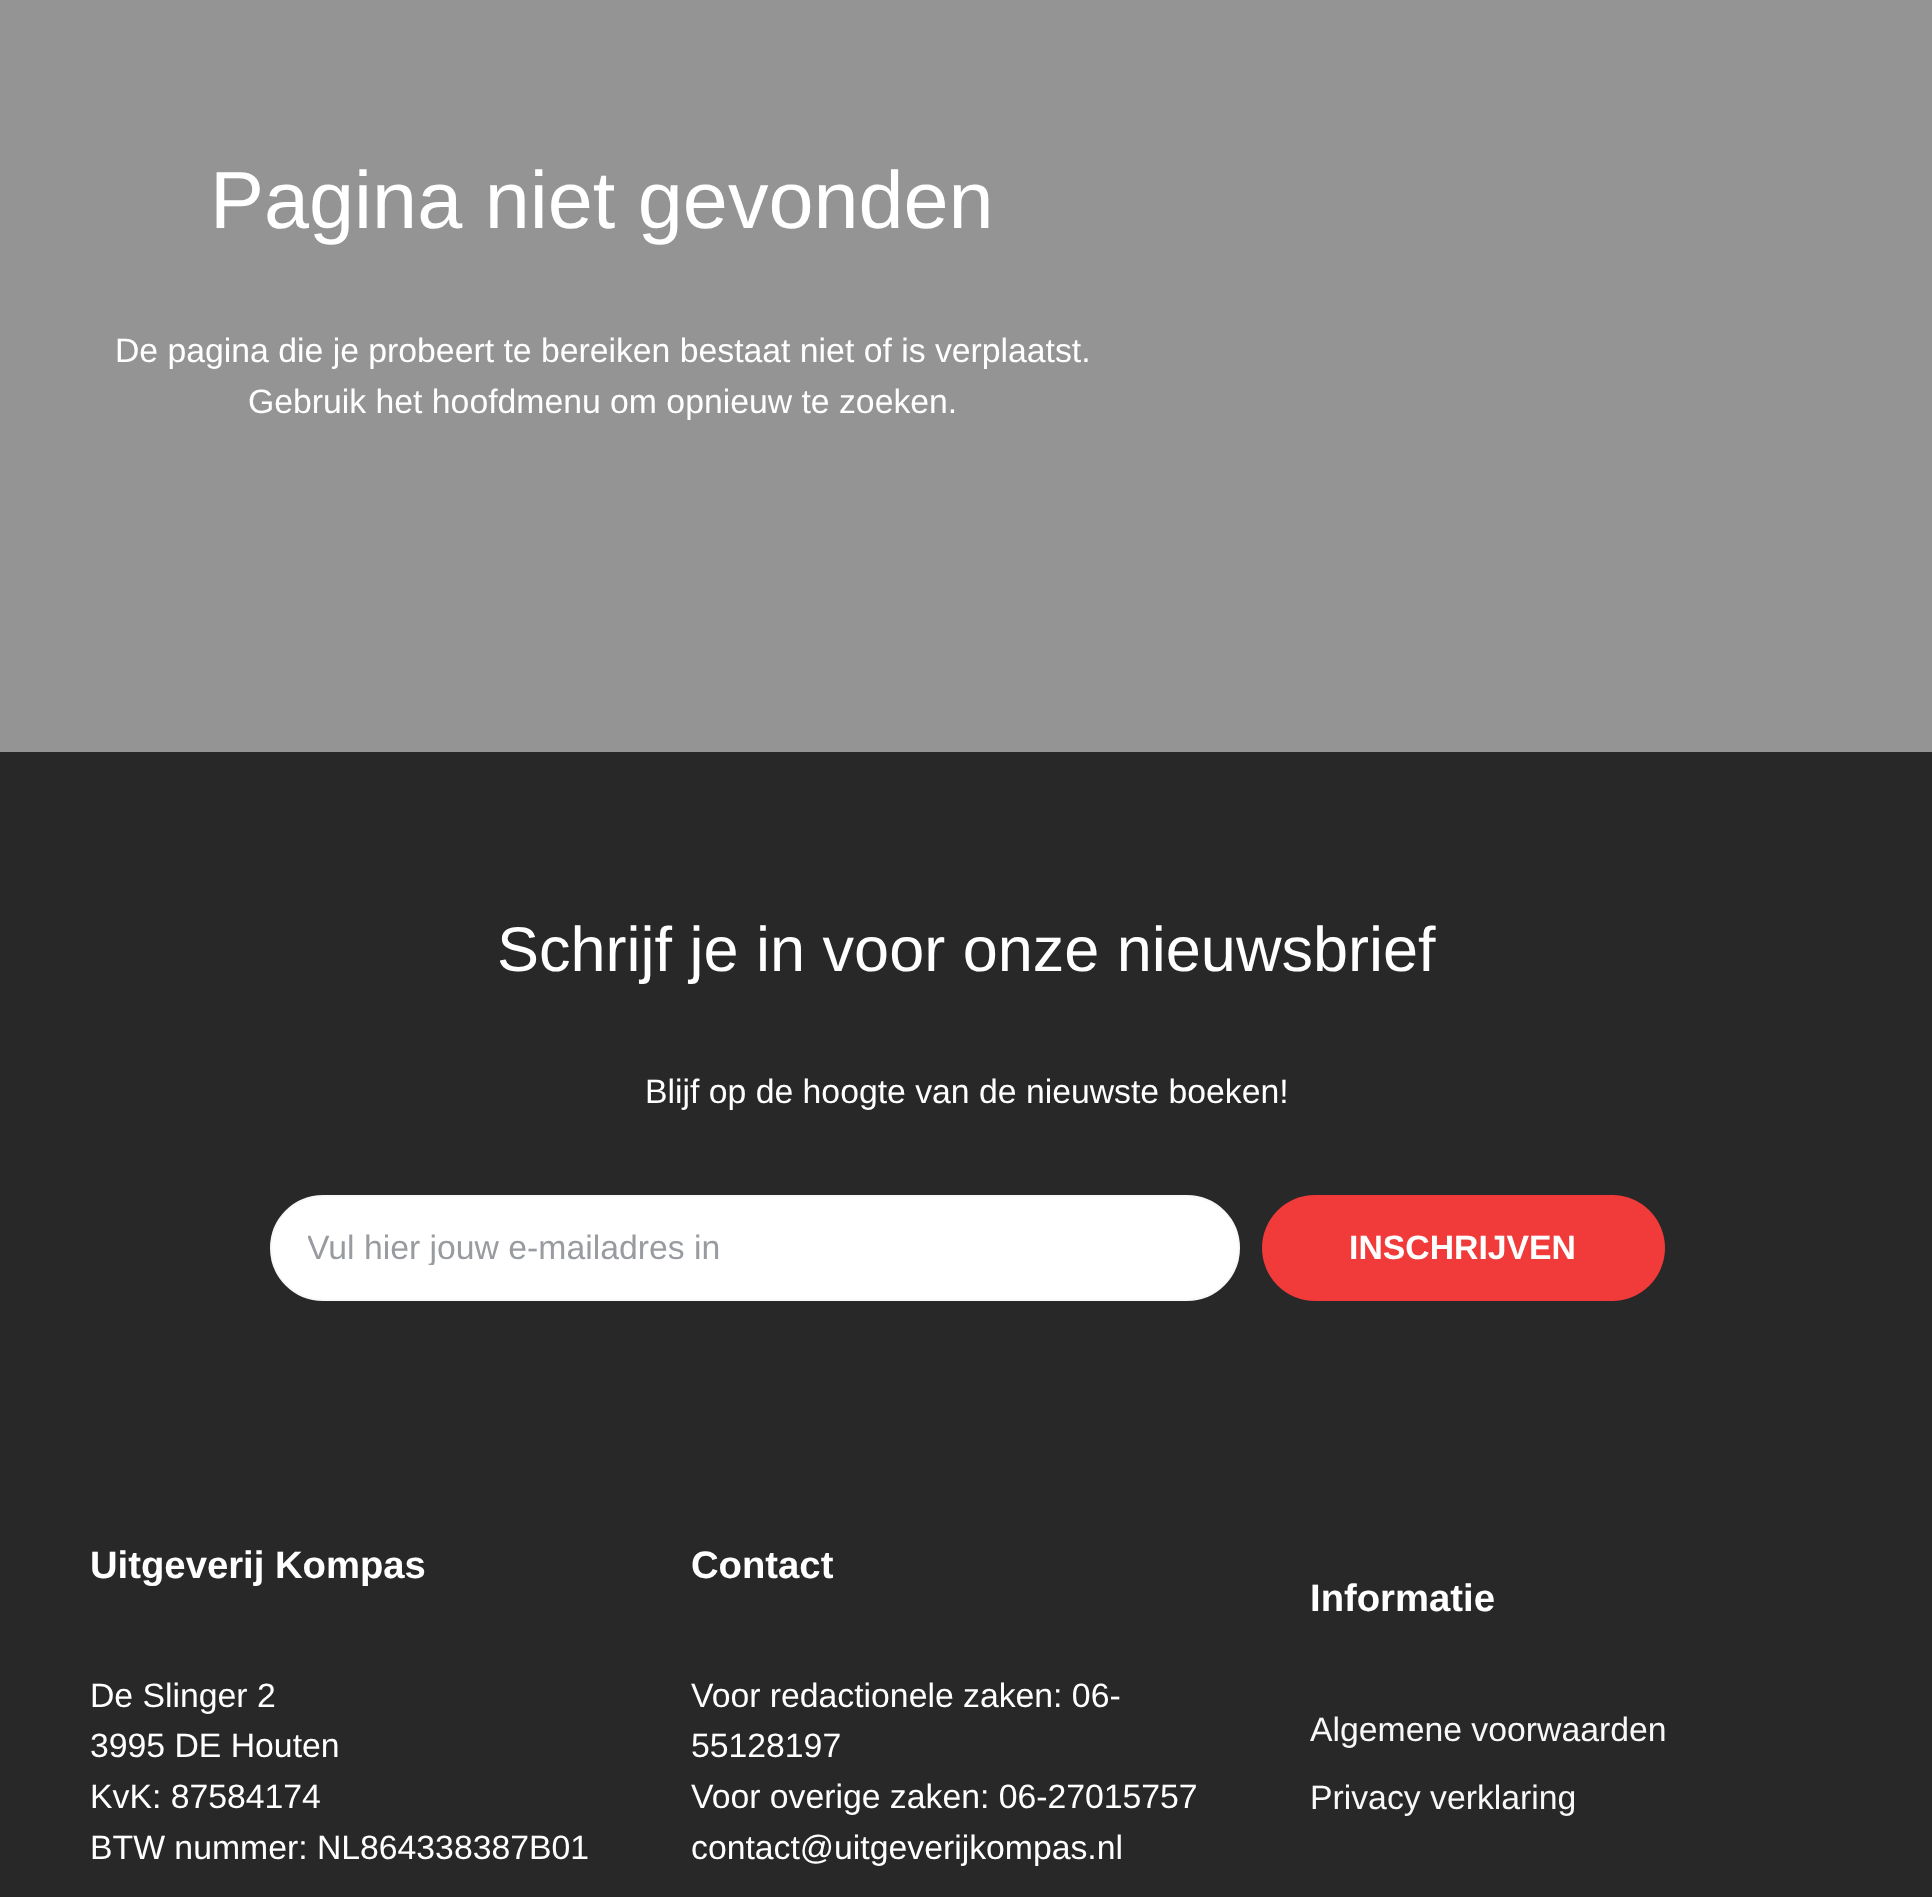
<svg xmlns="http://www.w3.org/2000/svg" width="1932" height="1897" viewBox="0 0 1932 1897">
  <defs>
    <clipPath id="clip1"><rect x="308" y="1226" width="894" height="39"/></clipPath>
  </defs>
  <rect width="100%" height="100%" fill="#949494"/>
  <text x="210" y="228" font-family="Liberation Sans" font-size="81" fill="#ffffff">Pagina niet gevonden</text>
  <text x="115" y="362" font-family="Liberation Sans" font-size="33.75" fill="#ffffff">De pagina die je probeert te bereiken bestaat niet of is verplaatst.</text>
  <text x="248" y="413" font-family="Liberation Sans" font-size="33.75" fill="#ffffff">Gebruik het hoofdmenu om opnieuw te zoeken.</text>
  <rect x="0" y="752" width="1932" height="1145" fill="#282828"/>
  <text x="497" y="971" font-family="Liberation Sans" font-size="63" fill="#ffffff">Schrijf je in voor onze nieuwsbrief</text>
  <text x="645" y="1103" font-family="Liberation Sans" font-size="33.75" fill="#ffffff">Blijf op de hoogte van de nieuwste boeken!</text>
  <rect x="271" y="1196" width="968" height="104" rx="52" fill="#ffffff" stroke="#f8f8f8" stroke-width="2"/>
  <g clip-path="url(#clip1)">
    <text x="307" y="1259" font-family="Liberation Sans" font-size="33.75" fill="#989b9f">Vul hier jouw e-mailadres in</text>
  </g>
  <rect x="1262" y="1195" width="403" height="106" rx="53" fill="#f13b3a"/>
  <text x="1349" y="1259" font-family="Liberation Sans" font-size="33.75" font-weight="bold" fill="#ffffff">INSCHRIJVEN</text>
  <text x="90" y="1578" font-family="Liberation Sans" font-size="38.25" font-weight="bold" fill="#ffffff">Uitgeverij Kompas</text>
  <text x="90" y="1707" font-family="Liberation Sans" font-size="33.75" fill="#ffffff">De Slinger 2</text>
  <text x="90" y="1757" font-family="Liberation Sans" font-size="33.75" fill="#ffffff">3995 DE Houten</text>
  <text x="90" y="1808" font-family="Liberation Sans" font-size="33.75" fill="#ffffff">KvK: 87584174</text>
  <text x="90" y="1859" font-family="Liberation Sans" font-size="33.75" fill="#ffffff">BTW nummer: NL864338387B01</text>
  <text x="691" y="1578" font-family="Liberation Sans" font-size="38.25" font-weight="bold" fill="#ffffff">Contact</text>
  <text x="691" y="1707" font-family="Liberation Sans" font-size="33.75" fill="#ffffff">Voor redactionele zaken: 06-</text>
  <text x="691" y="1757" font-family="Liberation Sans" font-size="33.75" fill="#ffffff">55128197</text>
  <text x="691" y="1808" font-family="Liberation Sans" font-size="33.75" fill="#ffffff">Voor overige zaken: 06-27015757</text>
  <text x="691" y="1859" font-family="Liberation Sans" font-size="33.75" fill="#ffffff">contact@uitgeverijkompas.nl</text>
  <text x="1310" y="1611" font-family="Liberation Sans" font-size="38.25" font-weight="bold" fill="#ffffff">Informatie</text>
  <text x="1310" y="1741" font-family="Liberation Sans" font-size="33.75" fill="#f8f8f8">Algemene voorwaarden</text>
  <text x="1310" y="1809" font-family="Liberation Sans" font-size="33.75" fill="#f8f8f8">Privacy verklaring</text>
</svg>
